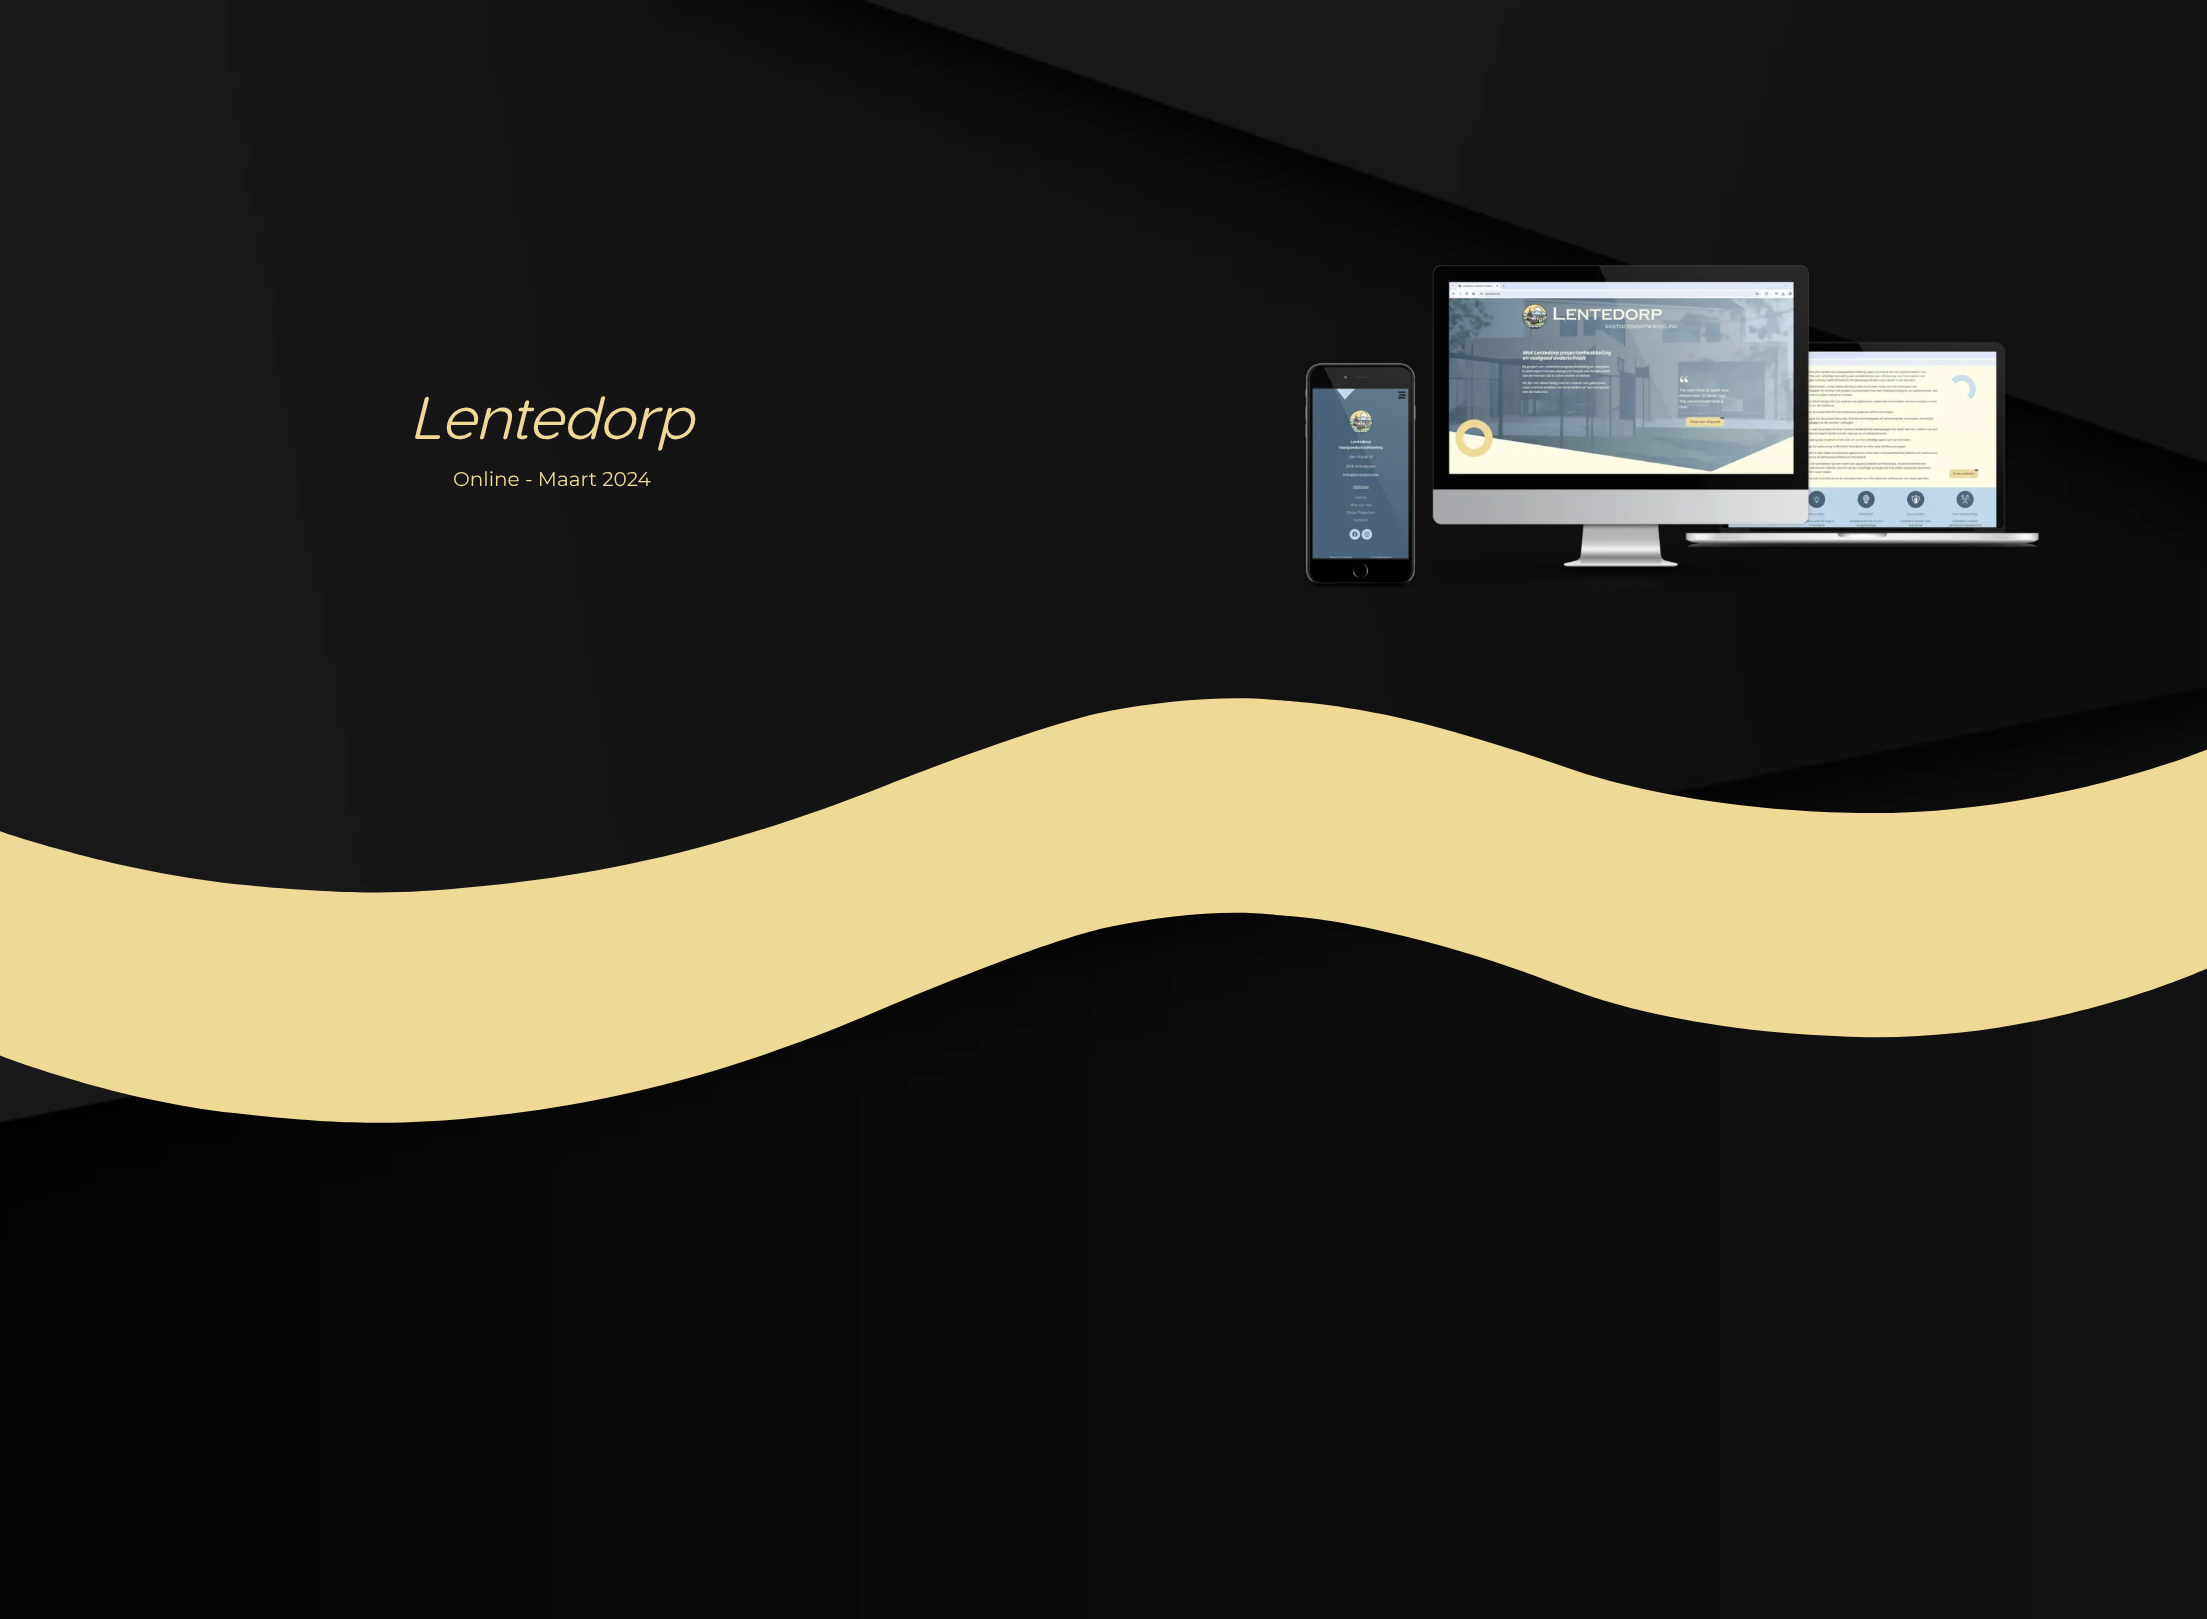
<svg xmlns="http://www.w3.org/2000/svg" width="2207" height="1619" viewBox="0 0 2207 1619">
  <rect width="100%" height="100%" fill="#ffffff"/>
  <image x="0" y="0" width="2207" height="1619" href="img1.png"/>
  <text x="411" y="439" font-family="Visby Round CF" font-size="60" font-style="italic" fill="#eed997">Lentedorp</text>
  <text x="453" y="486" font-family="Montserrat" font-size="20" fill="#eed997">Online - Maart 2024</text>
  <image x="1305" y="265" width="734" height="323" href="img2.png"/>
  <path d="M462 888C593 877 720 851 887 785C953 759 1057 721 1109 711C1162 701 1226 695 1276 700C1299 702 1326 703 1387 715C1447 728 1516 750 1562 766C1654 799 1772 812 1858 813C2049 816 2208 749 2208 749V902H-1V831C-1 831 113 871 234 884C354 896 410 893 462 888Z" fill="#eed997"/>
  <path d="M1276 915C1226 909 1163 916 1109 927C1057 938 953 979 887 1007C720 1079 592 1107 462 1119C410 1123 354 1127 234 1113C113 1100-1 1055-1 1055V900H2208V968C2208 968 2049 1042 1858 1037C1772 1035 1653 1022 1562 986C1516 968 1447 945 1386 932C1326 918 1299 917 1276 915Z" fill="#eed997"/>
</svg>
